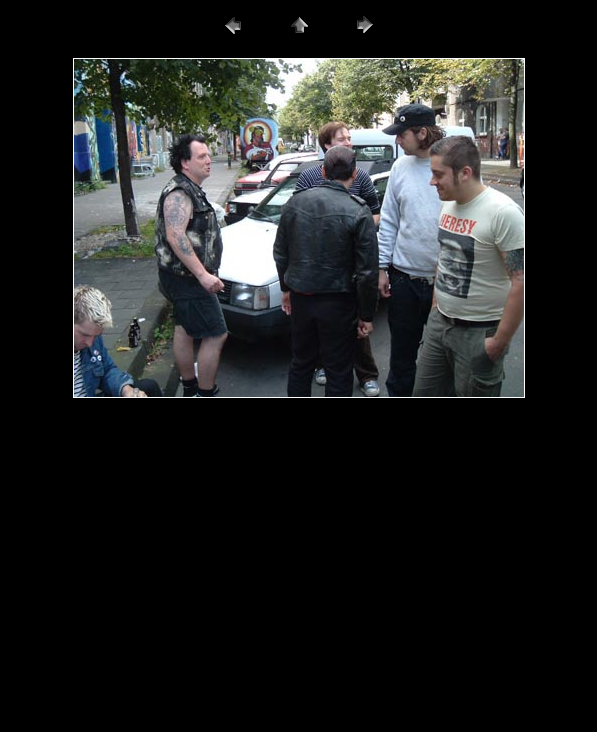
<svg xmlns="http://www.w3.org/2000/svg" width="597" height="732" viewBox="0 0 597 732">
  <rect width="100%" height="100%" fill="#000000"/>
  <image x="225" y="17" width="16" height="17" href="img1.png"/>
  <image x="291" y="17" width="17" height="16" href="img2.png"/>
  <image x="357" y="16" width="16" height="17" href="img3.png"/>
  <rect x="73.5" y="58.5" width="451" height="339" fill="none" stroke="#ffffff"/>
  <image x="74" y="59" width="450" height="338" href="img4.png"/>
</svg>
